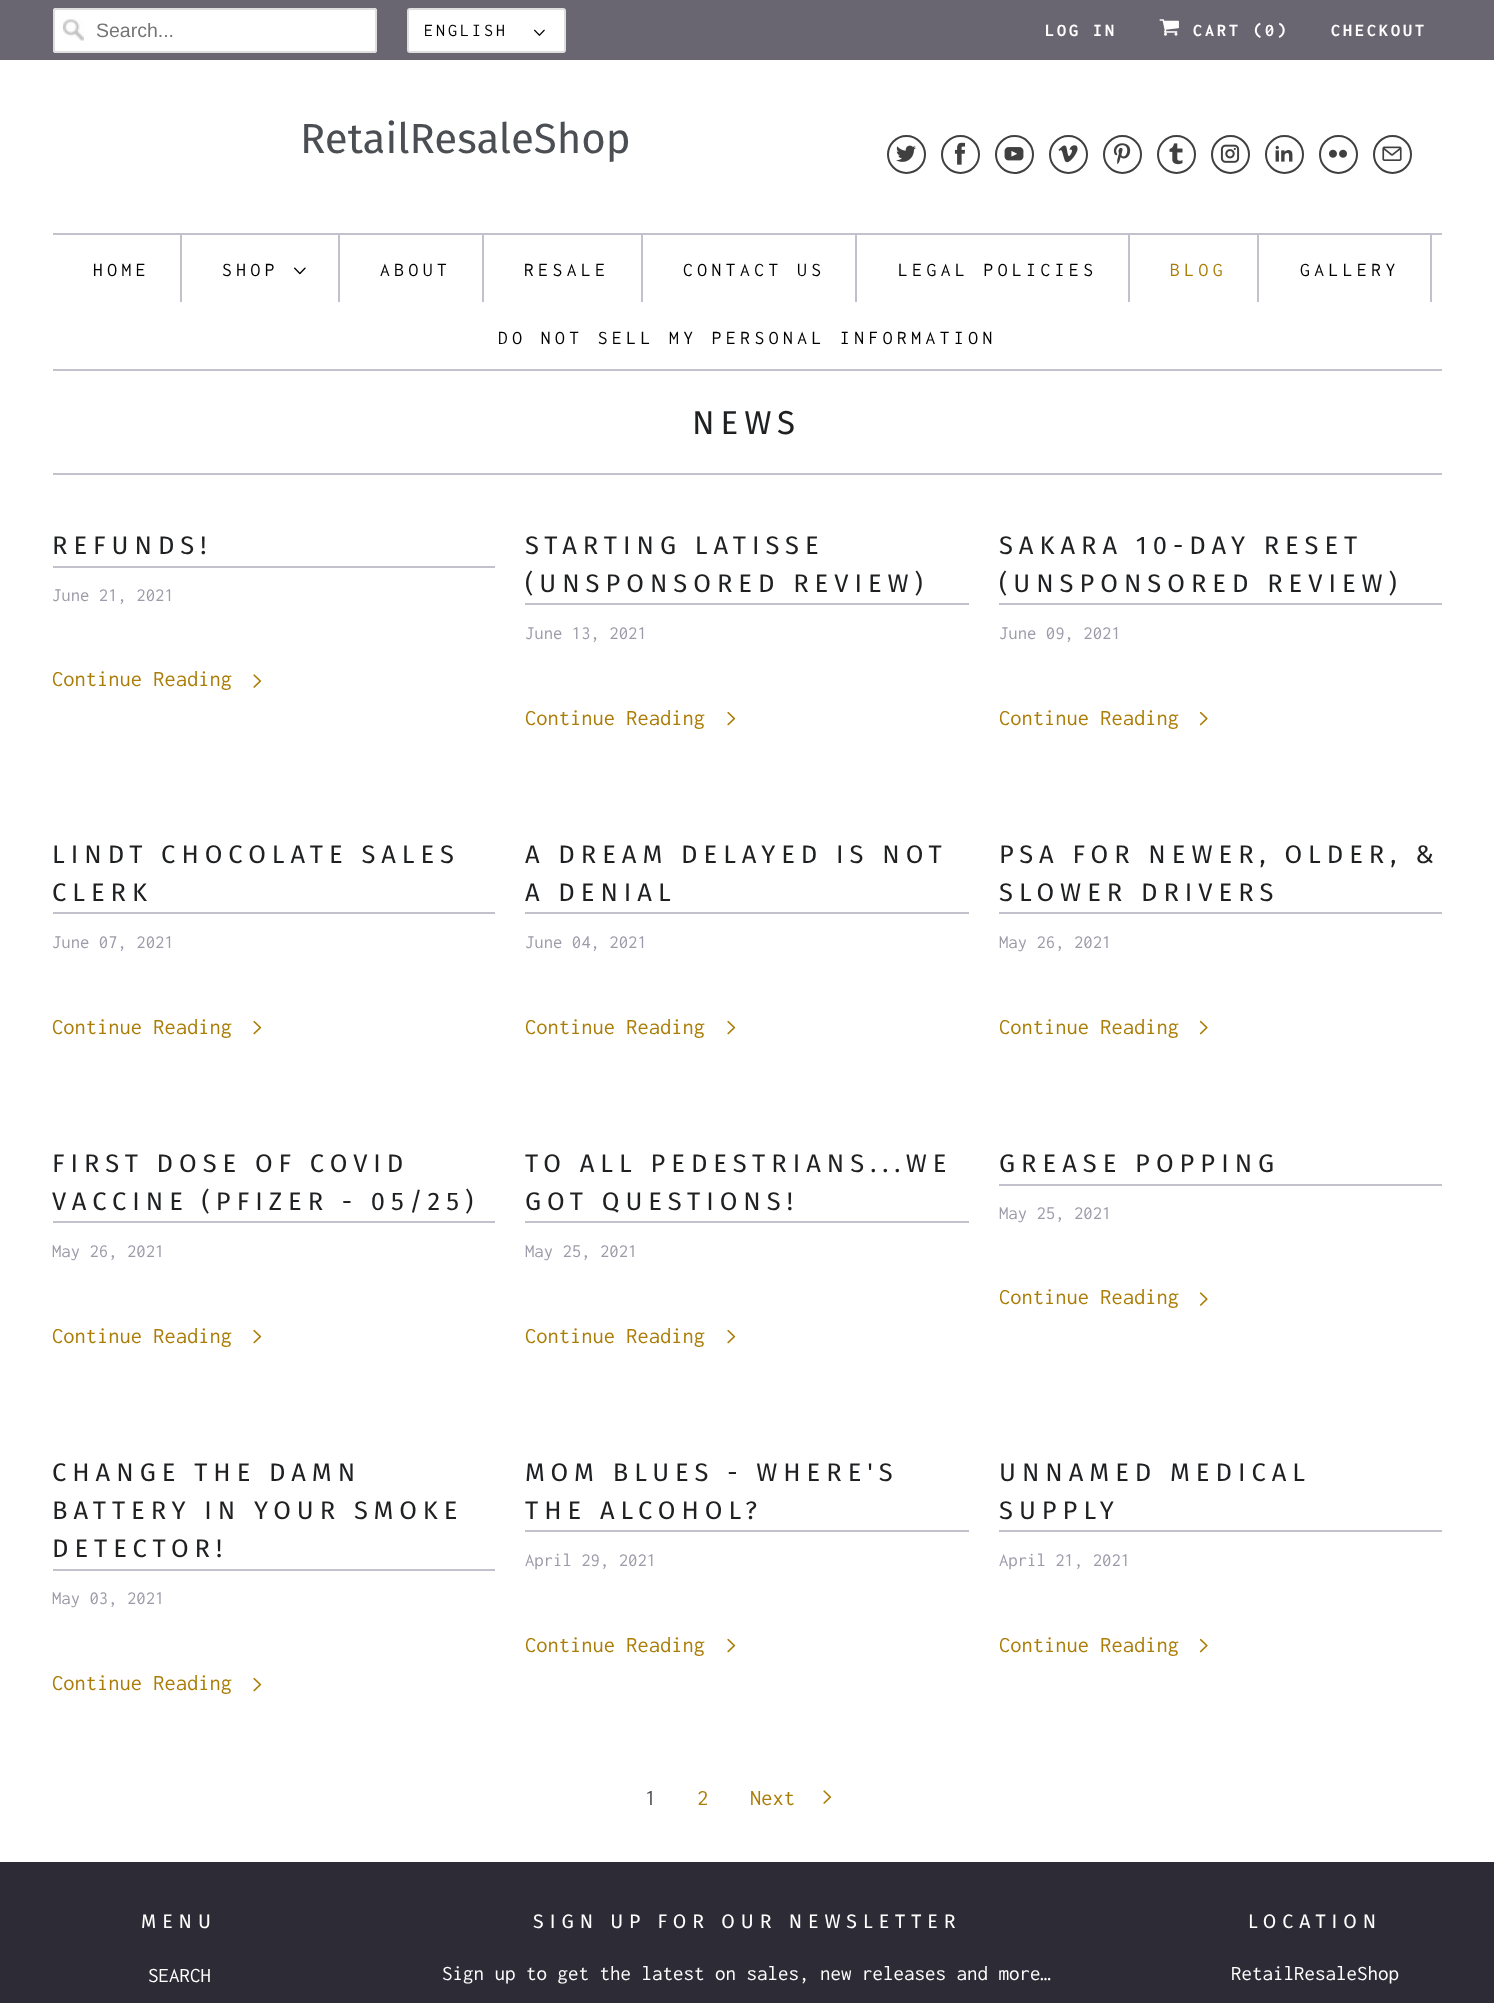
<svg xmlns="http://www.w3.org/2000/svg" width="1494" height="2003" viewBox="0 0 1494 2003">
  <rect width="100%" height="100%" fill="#ffffff"/>
  <rect x="0" y="0" width="1494" height="60" fill="#6a6671"/>
  <rect x="53" y="8" width="324" height="45" rx="3" fill="#ffffff"/>
  <image x="63" y="19" width="21" height="22" href="img1.png"/>
  <rect x="54" y="9" width="322" height="43" rx="2" fill="none" stroke="#dfdfdf" stroke-width="2"/>
  <text x="96" y="37" font-family="Liberation Sans" font-size="19.5" fill="#757575">Search...</text>
  <rect x="408" y="9" width="157" height="43" rx="2" fill="#ffffff" stroke="#dfdfdf" stroke-width="2"/>
  <text x="424" y="36" font-family="Inconsolata" font-size="18" letter-spacing="3" fill="#000000">ENGLISH</text>
  <image x="534" y="29" width="11" height="7" href="img2.png"/>
  <text x="1045" y="36" font-family="Inconsolata" font-size="18" font-weight="bold" letter-spacing="3" fill="#ffffff">LOG IN</text>
  <image x="1159" y="19" width="20" height="17" href="img3.png"/>
  <text x="1193" y="36" font-family="Inconsolata" font-size="18" font-weight="bold" letter-spacing="3" fill="#ffffff">CART (0)</text>
  <text x="1331" y="36" font-family="Inconsolata" font-size="18" font-weight="bold" letter-spacing="3" fill="#ffffff">CHECKOUT</text>
  <text x="300" y="153" font-family="Fira Sans" font-size="42" fill="#4b4f54">RetailResaleShop</text>
  <circle cx="906.5" cy="154.5" r="18.5" fill="none" stroke="#404040" stroke-width="2"/>
  <image x="896" y="145" width="20" height="17" href="img4.png"/>
  <circle cx="960.5" cy="154.5" r="18.5" fill="none" stroke="#404040" stroke-width="2"/>
  <image x="954" y="142" width="12" height="23" href="img5.png"/>
  <circle cx="1014.5" cy="154.5" r="18.5" fill="none" stroke="#404040" stroke-width="2"/>
  <image x="1004" y="147" width="20" height="14" href="img6.png"/>
  <circle cx="1068.5" cy="154.5" r="18.5" fill="none" stroke="#404040" stroke-width="2"/>
  <image x="1058" y="145" width="20" height="18" href="img7.png"/>
  <circle cx="1122.5" cy="154.5" r="18.5" fill="none" stroke="#404040" stroke-width="2"/>
  <image x="1113" y="143" width="18" height="22" href="img8.png"/>
  <circle cx="1176.5" cy="154.5" r="18.5" fill="none" stroke="#404040" stroke-width="2"/>
  <image x="1169" y="143" width="14" height="22" href="img9.png"/>
  <circle cx="1230.5" cy="154.5" r="18.5" fill="none" stroke="#404040" stroke-width="2"/>
  <image x="1220" y="144" width="20" height="19" href="img10.png"/>
  <circle cx="1284.5" cy="154.5" r="18.5" fill="none" stroke="#404040" stroke-width="2"/>
  <image x="1275" y="145" width="18" height="17" href="img11.png"/>
  <circle cx="1338.5" cy="154.5" r="18.5" fill="none" stroke="#404040" stroke-width="2"/>
  <image x="1329" y="149" width="18" height="9" href="img12.png"/>
  <circle cx="1392.5" cy="154.5" r="18.5" fill="none" stroke="#404040" stroke-width="2"/>
  <image x="1382" y="146" width="20" height="15" href="img13.png"/>
  <rect x="53" y="233" width="1389" height="2" fill="#c2c1cc"/>
  <rect x="53" y="369" width="1389" height="2" fill="#c2c1cc"/>
  <rect x="180" y="234" width="2" height="68" fill="#c2c1cc"/>
  <text x="93" y="276" font-family="Inconsolata" font-size="19.5" letter-spacing="4.5" fill="#000000">HOME</text>
  <rect x="338" y="234" width="2" height="68" fill="#c2c1cc"/>
  <text x="222" y="276" font-family="Inconsolata" font-size="19.5" letter-spacing="4.5" fill="#000000">SHOP</text>
  <image x="294" y="267" width="12" height="8" href="img14.png"/>
  <rect x="482" y="234" width="2" height="68" fill="#c2c1cc"/>
  <text x="380" y="276" font-family="Inconsolata" font-size="19.5" letter-spacing="4.5" fill="#000000">ABOUT</text>
  <rect x="641" y="234" width="2" height="68" fill="#c2c1cc"/>
  <text x="524" y="276" font-family="Inconsolata" font-size="19.5" letter-spacing="4.5" fill="#000000">RESALE</text>
  <rect x="855" y="234" width="2" height="68" fill="#c2c1cc"/>
  <text x="683" y="276" font-family="Inconsolata" font-size="19.5" letter-spacing="4.5" fill="#000000">CONTACT US</text>
  <rect x="1128" y="234" width="2" height="68" fill="#c2c1cc"/>
  <text x="898" y="276" font-family="Inconsolata" font-size="19.5" letter-spacing="4.5" fill="#000000">LEGAL POLICIES</text>
  <rect x="1257" y="234" width="2" height="68" fill="#c2c1cc"/>
  <text x="1170" y="276" font-family="Inconsolata" font-size="19.5" letter-spacing="4.5" fill="#ab7d07">BLOG</text>
  <rect x="1430" y="234" width="2" height="68" fill="#c2c1cc"/>
  <text x="1300" y="276" font-family="Inconsolata" font-size="19.5" letter-spacing="4.5" fill="#000000">GALLERY</text>
  <text x="498" y="344" font-family="Inconsolata" font-size="19.5" letter-spacing="4.5" fill="#000000">DO NOT SELL MY PERSONAL INFORMATION</text>
  <rect x="53" y="473" width="1389" height="2" fill="#c2c1cc"/>
  <text x="692" y="434" font-family="Fira Sans" font-size="33" letter-spacing="6" fill="#1f2022">NEWS</text>
  <rect x="53" y="566" width="442" height="2" fill="#c2c1cc"/>
  <text x="52" y="554" font-family="Fira Sans" font-size="25.5" letter-spacing="6" fill="#1f2022">REFUNDS!</text>
  <text x="52" y="601" font-family="Inconsolata" font-size="18.75" fill="#9d9ba9">June 21, 2021</text>
  <text x="52" y="686" font-family="Inconsolata" font-size="22.5" fill="#ab7d07">Continue Reading</text>
  <image x="253" y="674" width="9" height="14" href="img15.png"/>
  <rect x="525" y="603" width="444" height="2" fill="#c2c1cc"/>
  <text x="525" y="554" font-family="Fira Sans" font-size="25.5" letter-spacing="6" fill="#1f2022">STARTING LATISSE</text>
  <text x="525" y="592" font-family="Fira Sans" font-size="25.5" letter-spacing="6" fill="#1f2022">(UNSPONSORED REVIEW)</text>
  <text x="525" y="639" font-family="Inconsolata" font-size="18.75" fill="#9d9ba9">June 13, 2021</text>
  <text x="525" y="725" font-family="Inconsolata" font-size="22.5" fill="#ab7d07">Continue Reading</text>
  <image x="727" y="711" width="9" height="15" href="img16.png"/>
  <rect x="999" y="603" width="443" height="2" fill="#c2c1cc"/>
  <text x="999" y="554" font-family="Fira Sans" font-size="25.5" letter-spacing="6" fill="#1f2022">SAKARA 10-DAY RESET</text>
  <text x="999" y="592" font-family="Fira Sans" font-size="25.5" letter-spacing="6" fill="#1f2022">(UNSPONSORED REVIEW)</text>
  <text x="999" y="639" font-family="Inconsolata" font-size="18.75" fill="#9d9ba9">June 09, 2021</text>
  <text x="999" y="725" font-family="Inconsolata" font-size="22.5" fill="#ab7d07">Continue Reading</text>
  <image x="1199" y="711" width="9" height="15" href="img17.png"/>
  <rect x="53" y="912" width="442" height="2" fill="#c2c1cc"/>
  <text x="52" y="863" font-family="Fira Sans" font-size="25.5" letter-spacing="6" fill="#1f2022">LINDT CHOCOLATE SALES</text>
  <text x="52" y="901" font-family="Fira Sans" font-size="25.5" letter-spacing="6" fill="#1f2022">CLERK</text>
  <text x="52" y="948" font-family="Inconsolata" font-size="18.75" fill="#9d9ba9">June 07, 2021</text>
  <text x="52" y="1034" font-family="Inconsolata" font-size="22.5" fill="#ab7d07">Continue Reading</text>
  <image x="253" y="1020" width="9" height="15" href="img16.png"/>
  <rect x="525" y="912" width="444" height="2" fill="#c2c1cc"/>
  <text x="525" y="863" font-family="Fira Sans" font-size="25.5" letter-spacing="6" fill="#1f2022">A DREAM DELAYED IS NOT</text>
  <text x="525" y="901" font-family="Fira Sans" font-size="25.5" letter-spacing="6" fill="#1f2022">A DENIAL</text>
  <text x="525" y="948" font-family="Inconsolata" font-size="18.75" fill="#9d9ba9">June 04, 2021</text>
  <text x="525" y="1034" font-family="Inconsolata" font-size="22.5" fill="#ab7d07">Continue Reading</text>
  <image x="727" y="1020" width="9" height="15" href="img16.png"/>
  <rect x="999" y="912" width="443" height="2" fill="#c2c1cc"/>
  <text x="999" y="863" font-family="Fira Sans" font-size="25.5" letter-spacing="6" fill="#1f2022">PSA FOR NEWER, OLDER, &amp;</text>
  <text x="999" y="901" font-family="Fira Sans" font-size="25.5" letter-spacing="6" fill="#1f2022">SLOWER DRIVERS</text>
  <text x="999" y="948" font-family="Inconsolata" font-size="18.75" fill="#9d9ba9">May 26, 2021</text>
  <text x="999" y="1034" font-family="Inconsolata" font-size="22.5" fill="#ab7d07">Continue Reading</text>
  <image x="1199" y="1020" width="9" height="15" href="img17.png"/>
  <rect x="53" y="1221" width="442" height="2" fill="#c2c1cc"/>
  <text x="52" y="1172" font-family="Fira Sans" font-size="25.5" letter-spacing="6" fill="#1f2022">FIRST DOSE OF COVID</text>
  <text x="52" y="1210" font-family="Fira Sans" font-size="25.5" letter-spacing="6" fill="#1f2022">VACCINE (PFIZER - 05/25)</text>
  <text x="52" y="1257" font-family="Inconsolata" font-size="18.75" fill="#9d9ba9">May 26, 2021</text>
  <text x="52" y="1343" font-family="Inconsolata" font-size="22.5" fill="#ab7d07">Continue Reading</text>
  <image x="253" y="1329" width="9" height="15" href="img16.png"/>
  <rect x="525" y="1221" width="444" height="2" fill="#c2c1cc"/>
  <text x="525" y="1172" font-family="Fira Sans" font-size="25.5" letter-spacing="6" fill="#1f2022">TO ALL PEDESTRIANS...WE</text>
  <text x="525" y="1210" font-family="Fira Sans" font-size="25.5" letter-spacing="6" fill="#1f2022">GOT QUESTIONS!</text>
  <text x="525" y="1257" font-family="Inconsolata" font-size="18.75" fill="#9d9ba9">May 25, 2021</text>
  <text x="525" y="1343" font-family="Inconsolata" font-size="22.5" fill="#ab7d07">Continue Reading</text>
  <image x="727" y="1329" width="9" height="15" href="img16.png"/>
  <rect x="999" y="1184" width="443" height="2" fill="#c2c1cc"/>
  <text x="999" y="1172" font-family="Fira Sans" font-size="25.5" letter-spacing="6" fill="#1f2022">GREASE POPPING</text>
  <text x="999" y="1219" font-family="Inconsolata" font-size="18.75" fill="#9d9ba9">May 25, 2021</text>
  <text x="999" y="1304" font-family="Inconsolata" font-size="22.5" fill="#ab7d07">Continue Reading</text>
  <image x="1199" y="1292" width="9" height="14" href="img18.png"/>
  <rect x="53" y="1569" width="442" height="2" fill="#c2c1cc"/>
  <text x="52" y="1481" font-family="Fira Sans" font-size="25.5" letter-spacing="6" fill="#1f2022">CHANGE THE DAMN</text>
  <text x="52" y="1519" font-family="Fira Sans" font-size="25.5" letter-spacing="6" fill="#1f2022">BATTERY IN YOUR SMOKE</text>
  <text x="52" y="1557" font-family="Fira Sans" font-size="25.5" letter-spacing="6" fill="#1f2022">DETECTOR!</text>
  <text x="52" y="1604" font-family="Inconsolata" font-size="18.75" fill="#9d9ba9">May 03, 2021</text>
  <text x="52" y="1690" font-family="Inconsolata" font-size="22.5" fill="#ab7d07">Continue Reading</text>
  <image x="253" y="1677" width="9" height="15" href="img16.png"/>
  <rect x="525" y="1530" width="444" height="2" fill="#c2c1cc"/>
  <text x="525" y="1481" font-family="Fira Sans" font-size="25.5" letter-spacing="6" fill="#1f2022">MOM BLUES - WHERE'S</text>
  <text x="525" y="1519" font-family="Fira Sans" font-size="25.5" letter-spacing="6" fill="#1f2022">THE ALCOHOL?</text>
  <text x="525" y="1566" font-family="Inconsolata" font-size="18.75" fill="#9d9ba9">April 29, 2021</text>
  <text x="525" y="1652" font-family="Inconsolata" font-size="22.5" fill="#ab7d07">Continue Reading</text>
  <image x="727" y="1638" width="9" height="15" href="img16.png"/>
  <rect x="999" y="1530" width="443" height="2" fill="#c2c1cc"/>
  <text x="999" y="1481" font-family="Fira Sans" font-size="25.5" letter-spacing="6" fill="#1f2022">UNNAMED MEDICAL</text>
  <text x="999" y="1519" font-family="Fira Sans" font-size="25.5" letter-spacing="6" fill="#1f2022">SUPPLY</text>
  <text x="999" y="1566" font-family="Inconsolata" font-size="18.75" fill="#9d9ba9">April 21, 2021</text>
  <text x="999" y="1652" font-family="Inconsolata" font-size="22.5" fill="#ab7d07">Continue Reading</text>
  <image x="1199" y="1638" width="9" height="15" href="img17.png"/>
  <text x="645" y="1805" font-family="Inconsolata" font-size="22.5" fill="#4b4f54">1</text>
  <text x="697" y="1805" font-family="Inconsolata" font-size="22.5" fill="#ab7d07">2</text>
  <text x="750" y="1805" font-family="Inconsolata" font-size="22.5" fill="#ab7d07">Next</text>
  <image x="823" y="1790" width="9" height="14" href="img15.png"/>
  <rect x="0" y="1862" width="1494" height="141" fill="#2d2b35"/>
  <text x="141" y="1928" font-family="Fira Sans" font-size="19.5" letter-spacing="6" fill="#ffffff">MENU</text>
  <text x="148" y="1982" font-family="Inconsolata" font-size="21" fill="#ffffff">SEARCH</text>
  <text x="533" y="1928" font-family="Fira Sans" font-size="19.5" letter-spacing="6" fill="#ffffff">SIGN UP FOR OUR NEWSLETTER</text>
  <text x="442" y="1980" font-family="Inconsolata" font-size="21" fill="#ffffff">Sign up to get the latest on sales, new releases and more…</text>
  <text x="1248" y="1928" font-family="Fira Sans" font-size="19.5" letter-spacing="6" fill="#ffffff">LOCATION</text>
  <text x="1231" y="1980" font-family="Inconsolata" font-size="21" fill="#ffffff">RetailResaleShop</text>
</svg>
